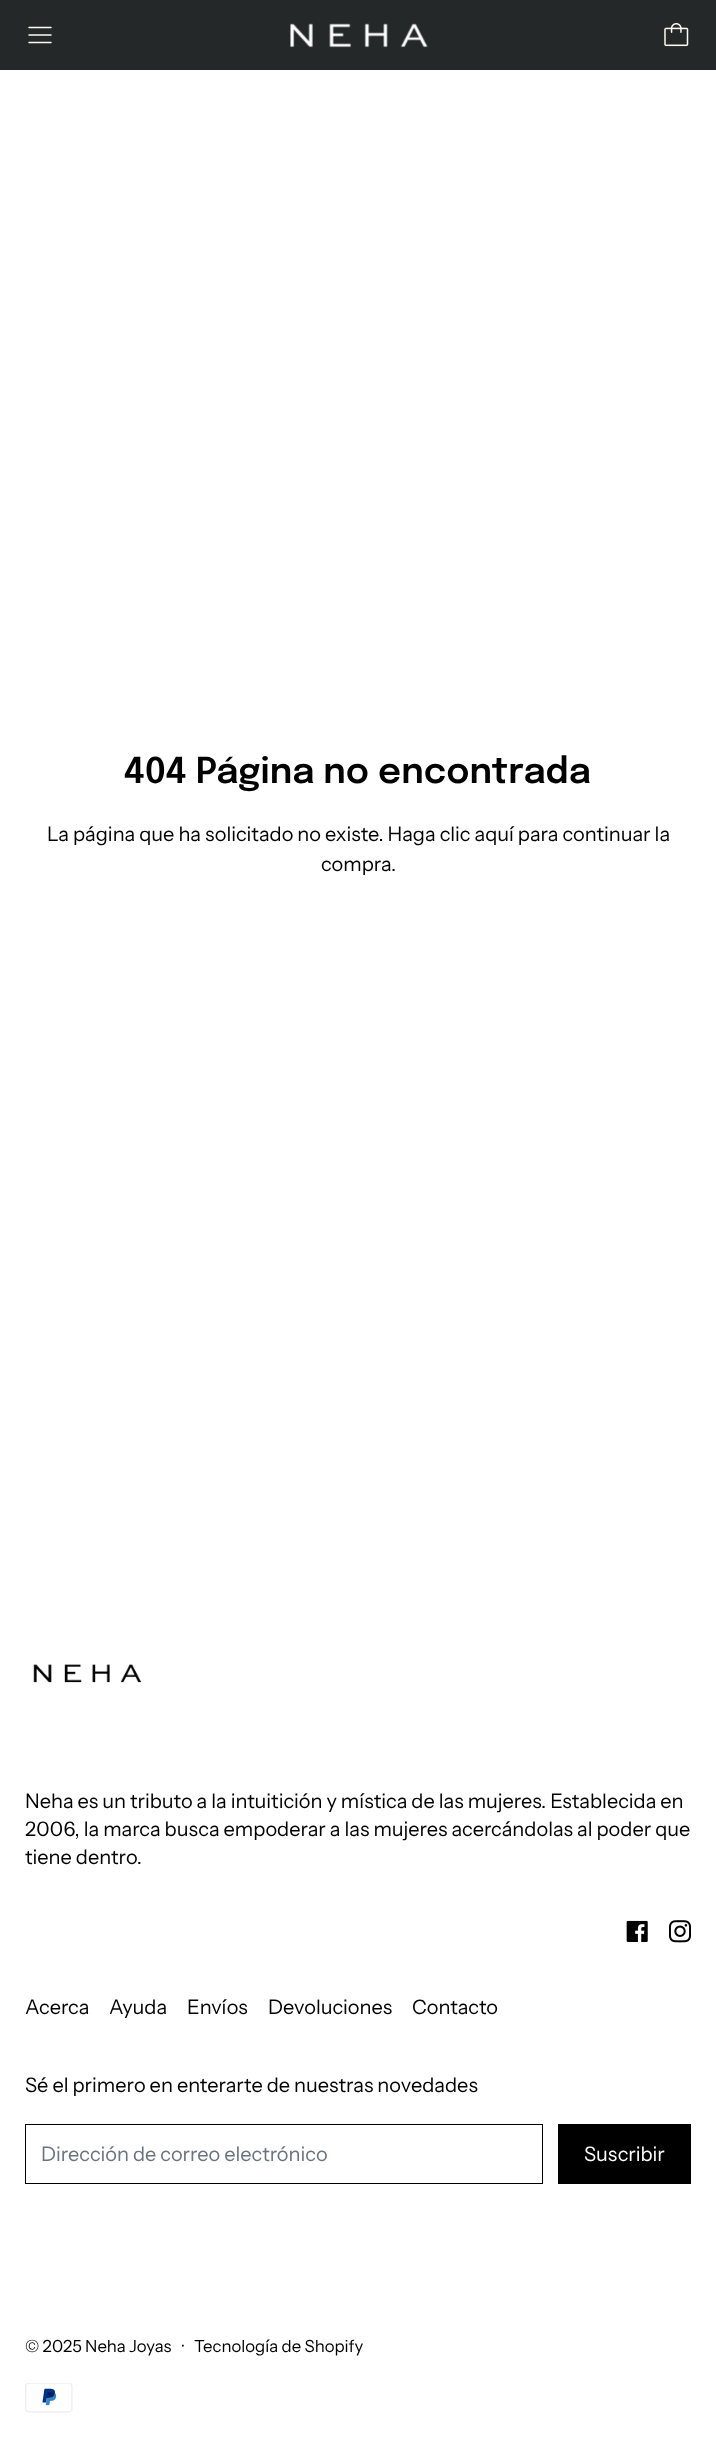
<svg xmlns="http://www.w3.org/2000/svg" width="716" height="2438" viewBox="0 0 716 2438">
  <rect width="100%" height="100%" fill="#ffffff"/>
  <rect x="0" y="0" width="716" height="70" fill="#242828"/>
  <path d="M29 35H51M29 27.5H51M29 42.5H51" fill="none" stroke="#fffaf2" stroke-width="1.5" stroke-linecap="round" stroke-linejoin="round"/>
  <image x="290" y="23" width="138" height="25" href="img1.png"/>
  <image x="664" y="23" width="25" height="24" href="img2.png"/>
  <text x="124" y="783" font-family="Epilogue" font-size="35.6" font-weight="600" fill="#000000">404 Página no encontrada</text>
  <text x="47" y="841" font-family="Instrument Sans" font-size="20" fill="#000000">La página que ha solicitado no existe. Haga clic aquí para continuar la</text>
  <text x="321" y="871" font-family="Instrument Sans" font-size="20" fill="#000000">compra.</text>
  <image x="33" y="1664" width="109" height="19" href="img3.png"/>
  <text x="25" y="1808" font-family="Instrument Sans" font-size="20" fill="#000000">Neha es un tributo a la intuitición y mística de las mujeres. Establecida en</text>
  <text x="25" y="1836" font-family="Instrument Sans" font-size="20" fill="#000000">2006, la marca busca empoderar a las mujeres acercándolas al poder que</text>
  <text x="25" y="1864" font-family="Instrument Sans" font-size="20" fill="#000000">tiene dentro.</text>
  <image x="626" y="1920" width="22" height="22" href="img4.png"/>
  <image x="669" y="1920" width="22" height="23" href="img5.png"/>
  <text x="25" y="2014" font-family="Instrument Sans" font-size="20" fill="#000000">Acerca</text>
  <text x="109" y="2014" font-family="Instrument Sans" font-size="20" fill="#000000">Ayuda</text>
  <text x="187" y="2014" font-family="Instrument Sans" font-size="20" fill="#000000">Envíos</text>
  <text x="268" y="2014" font-family="Instrument Sans" font-size="20" fill="#000000">Devoluciones</text>
  <text x="412" y="2014" font-family="Instrument Sans" font-size="20" fill="#000000">Contacto</text>
  <text x="25" y="2092" font-family="Instrument Sans" font-size="20" fill="#000000">Sé el primero en enterarte de nuestras novedades</text>
  <rect x="25.5" y="2124.5" width="517" height="59" fill="none" stroke="#000000"/>
  <text x="41" y="2161" font-family="Instrument Sans" font-size="20" fill="#6b7280">Dirección de correo electrónico</text>
  <rect x="558" y="2124" width="133" height="60" fill="#000000"/>
  <text x="584" y="2161" font-family="Instrument Sans" font-size="20" fill="#ffffff">Suscribir</text>
  <text x="25" y="2352" font-family="Instrument Sans" font-size="16.75" fill="#000000">© 2025 Neha Joyas</text>
  <text x="182" y="2352" font-family="Instrument Sans" font-size="16.75" fill="#000000">·</text>
  <text x="194" y="2352" font-family="Instrument Sans" font-size="16.75" fill="#000000">Tecnología de Shopify</text>
  <image x="25" y="2383" width="48" height="30" href="img6.png"/>
</svg>
